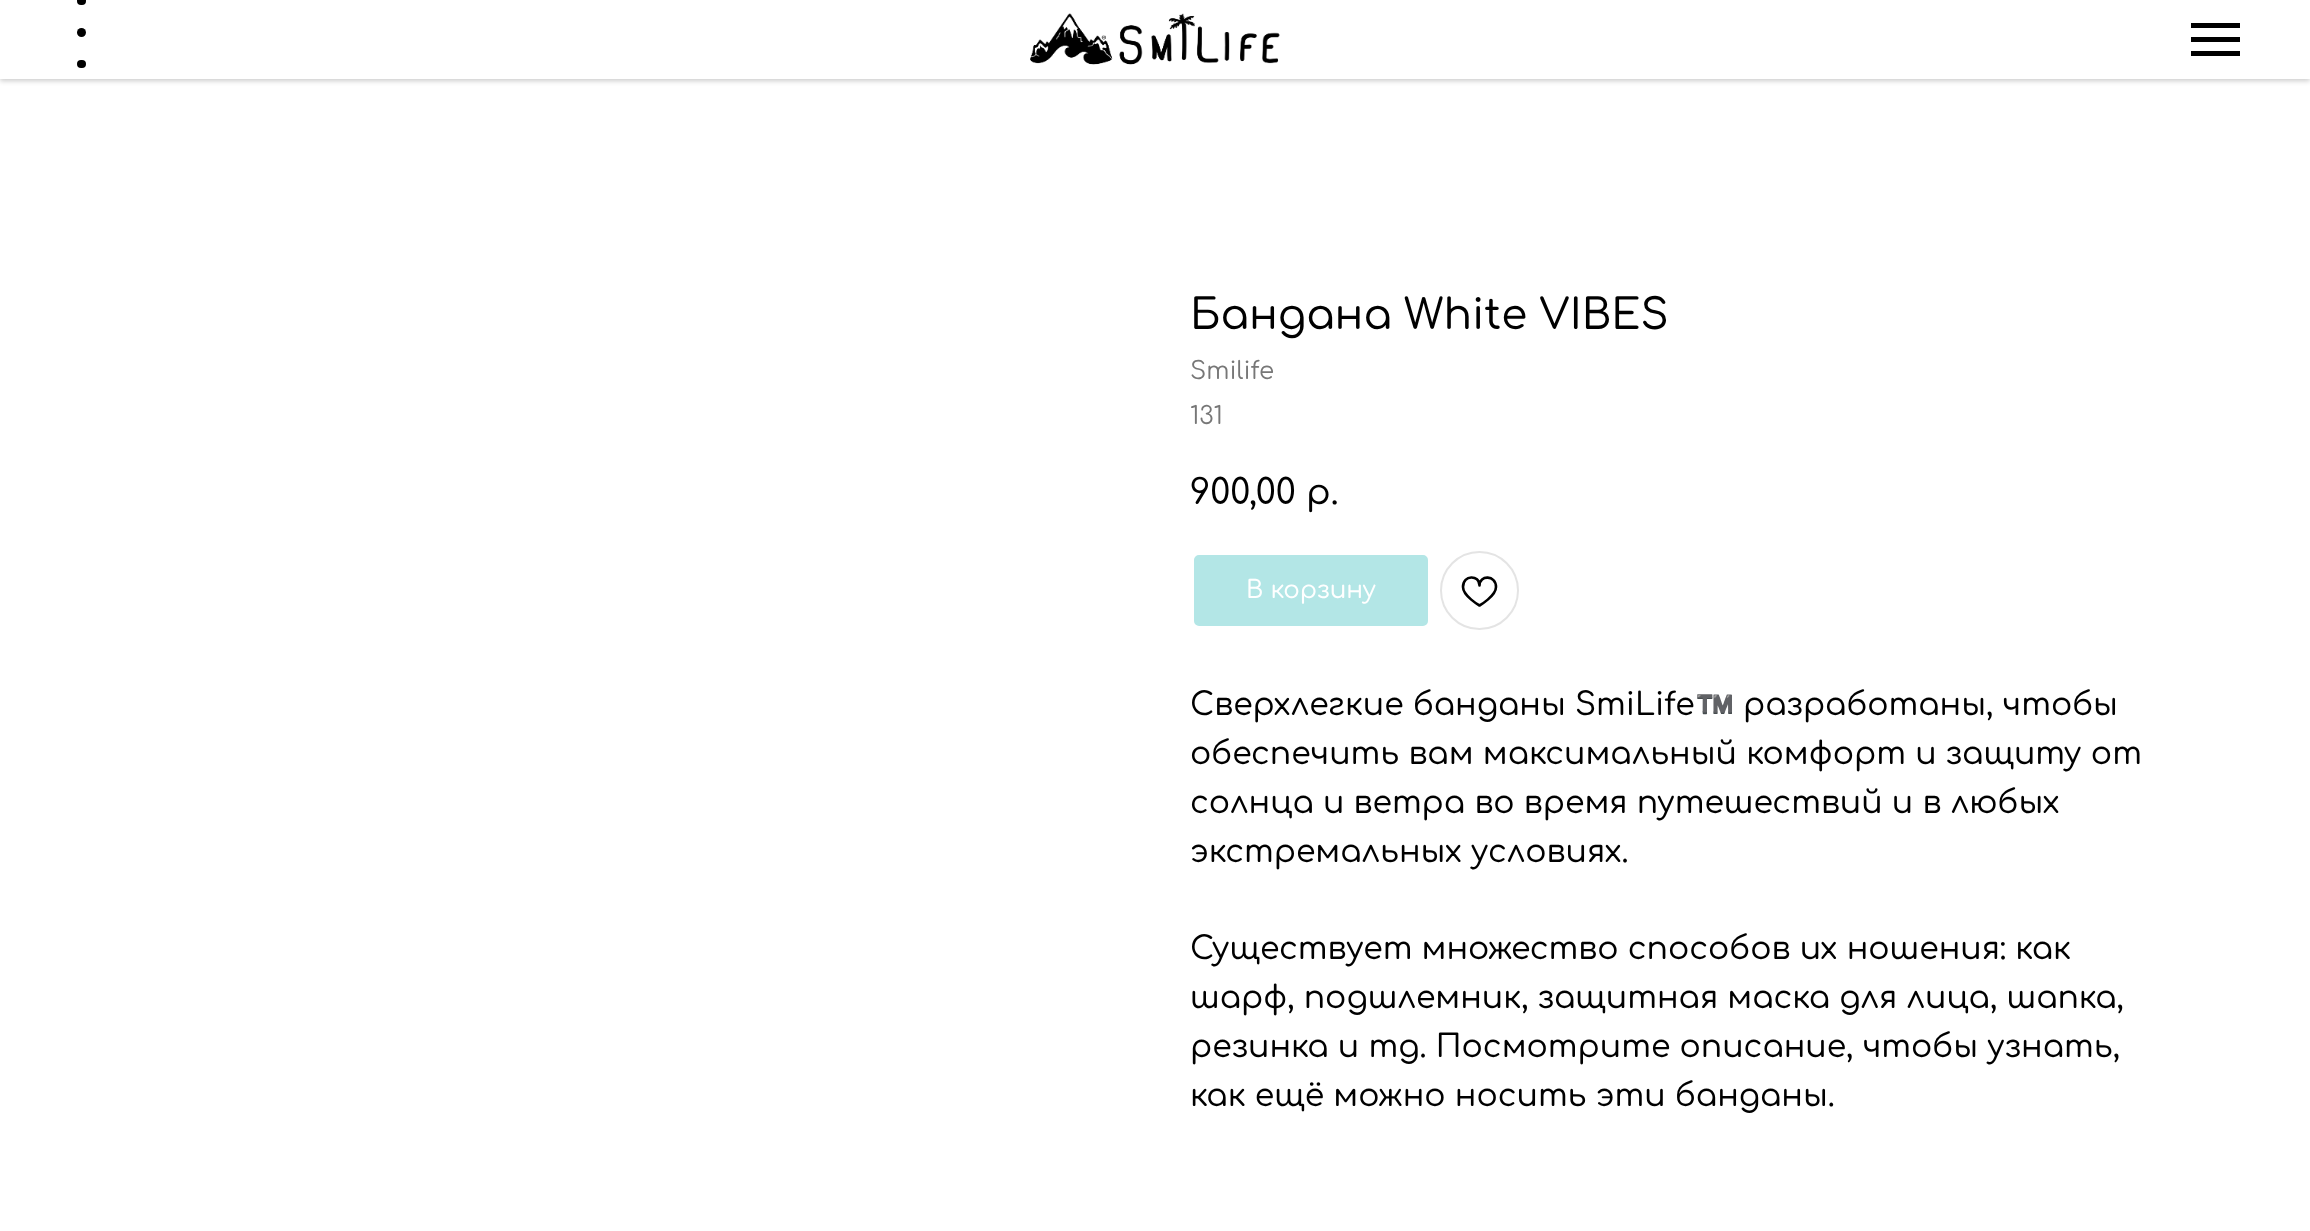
<svg xmlns="http://www.w3.org/2000/svg" width="2310" height="1231" viewBox="0 0 2310 1231">
  <defs>
    <clipPath id="clip1"><path d="M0 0H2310V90H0ZM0 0H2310V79H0Z" clip-rule="evenodd"/></clipPath>
    <filter id="blur1" x="-50%" y="-200%" width="200%" height="500%"><feGaussianBlur stdDeviation="2.5"/></filter>
  </defs>
  <rect width="100%" height="100%" fill="#ffffff"/>
  <g clip-path="url(#clip1)">
    <rect x="0" y="2" width="2310" height="79" fill="#000000" fill-opacity="0.2" filter="url(#blur1)"/>
  </g>
  <rect x="77" y="-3" width="9" height="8" rx="4" fill="#000000"/>
  <circle cx="81.5" cy="32.5" r="4.5" fill="#000000"/>
  <rect x="77" y="60" width="9" height="8" rx="4" fill="#000000"/>
  <image x="1030" y="13" width="250" height="52" href="img1.png"/>
  <rect x="2191" y="23" width="49" height="5" fill="#000000"/>
  <rect x="2191" y="37" width="49" height="5" fill="#000000"/>
  <rect x="2191" y="51" width="49" height="5" fill="#000000"/>
  <rect x="0" y="78" width="2310" height="1" fill="#ffffff" fill-opacity="0.9"/>
  <text x="1190" y="329" font-family="Comfortaa" font-size="42" font-weight="500" fill="#000000">Бандана White VIBES</text>
  <text x="1190" y="379" font-family="Comfortaa" font-size="24.5" fill="#777777">Smilife</text>
  <text x="1190" y="424" font-family="Comfortaa" font-size="24.5" fill="#777777">131</text>
  <text x="1190" y="504" font-family="Comfortaa" font-size="35" font-weight="500" fill="#000000">900,00</text>
  <text x="1306" y="504" font-family="Comfortaa" font-size="35" font-weight="500" fill="#000000">р.</text>
  <rect x="1192" y="553" width="238" height="75" rx="7" fill="#b3e6e6" stroke="#ffffff" stroke-width="4"/>
  <text x="1246" y="598" font-family="Comfortaa" font-size="24.5" font-weight="500" fill="#ffffff">В корзину</text>
  <circle cx="1479.5" cy="590.5" r="38.5" fill="none" stroke="#e4e4e4" stroke-width="2"/>
  <path d="M1496 587C1496 596 1479.5 605.5 1479.5 605.5C1479.5 605.5 1463 596 1463 587C1463 574.5 1479.5 574.5 1479.5 585.5C1479.5 574.5 1496 575 1496 587Z" fill="none" stroke="#000000" stroke-width="2.6" stroke-linejoin="round"/>
  <text x="1190" y="715" font-family="Comfortaa" font-size="31.5" font-weight="500" fill="#000000">Сверхлегкие банданы SmiLife</text>
  <text x="1695" y="715" font-family="Noto Color Emoji" font-size="31.5" fill="#000000">™️</text>
  <text x="1743" y="715" font-family="Comfortaa" font-size="31.5" font-weight="500" fill="#000000">разработаны, чтобы</text>
  <text x="1190" y="764" font-family="Comfortaa" font-size="31.5" font-weight="500" fill="#000000">обеспечить вам максимальный комфорт и защиту от</text>
  <text x="1190" y="813" font-family="Comfortaa" font-size="31.5" font-weight="500" fill="#000000">солнца и ветра во время путешествий и в любых</text>
  <text x="1190" y="862" font-family="Comfortaa" font-size="31.5" font-weight="500" fill="#000000">экстремальных условиях.</text>
  <text x="1190" y="959" font-family="Comfortaa" font-size="31.5" font-weight="500" fill="#000000">Существует множество способов их ношения: как</text>
  <text x="1190" y="1008" font-family="Comfortaa" font-size="31.5" font-weight="500" fill="#000000">шарф, подшлемник, защитная маска для лица, шапка,</text>
  <text x="1190" y="1057" font-family="Comfortaa" font-size="31.5" font-weight="500" fill="#000000">резинка и тд. Посмотрите описание, чтобы узнать,</text>
  <text x="1190" y="1106" font-family="Comfortaa" font-size="31.5" font-weight="500" fill="#000000">как ещё можно носить эти банданы.</text>
</svg>
